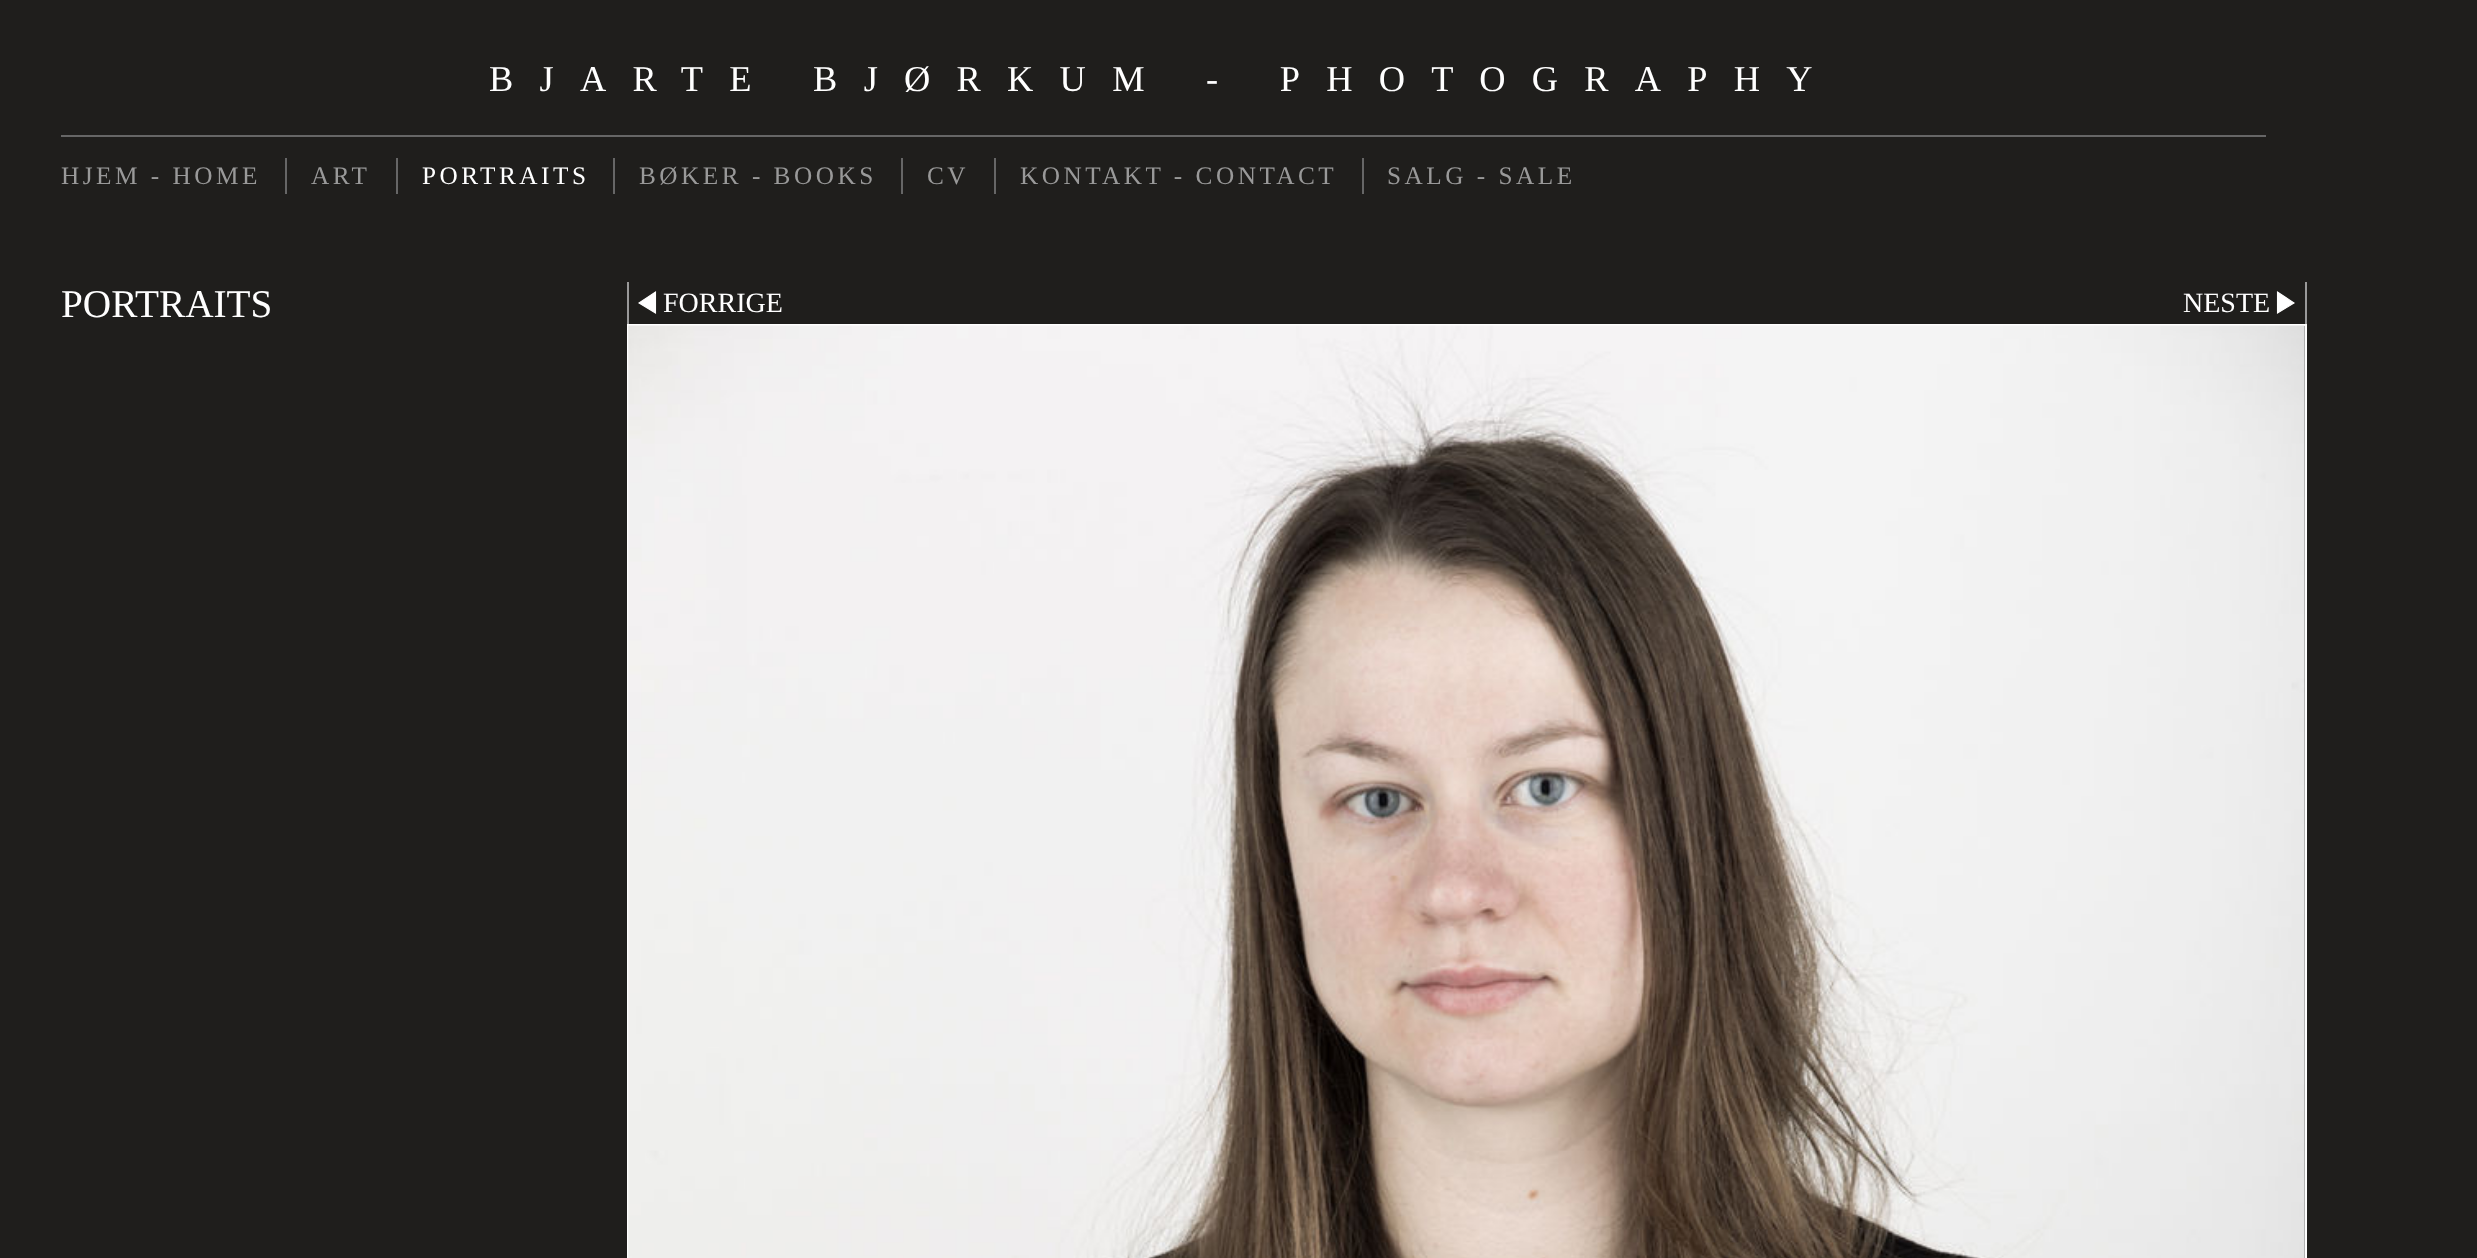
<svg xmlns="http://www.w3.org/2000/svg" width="2477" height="1258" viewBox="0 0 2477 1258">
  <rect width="100%" height="100%" fill="#1f1e1c"/>
  <rect x="61" y="135" width="2205" height="2" fill="#666666"/>
  <text x="489" y="91" font-family="Liberation Serif" font-size="36.4" letter-spacing="26.25" fill="#ffffff">BJARTE BJØRKUM - PHOTOGRAPHY</text>
  <text x="61" y="184" font-family="Liberation Serif" font-size="25.25" letter-spacing="3.5" fill="#999999">HJEM - HOME</text>
  <rect x="285" y="158" width="2" height="36" fill="#666666"/>
  <text x="311" y="184" font-family="Liberation Serif" font-size="25.25" letter-spacing="3.5" fill="#999999">ART</text>
  <rect x="396" y="158" width="2" height="36" fill="#666666"/>
  <text x="422" y="184" font-family="Liberation Serif" font-size="25.25" letter-spacing="3.5" fill="#ffffff">PORTRAITS</text>
  <rect x="613" y="158" width="2" height="36" fill="#666666"/>
  <text x="639" y="184" font-family="Liberation Serif" font-size="25.25" letter-spacing="3.5" fill="#999999">BØKER - BOOKS</text>
  <rect x="901" y="158" width="2" height="36" fill="#666666"/>
  <text x="927" y="184" font-family="Liberation Serif" font-size="25.25" letter-spacing="3.5" fill="#999999">CV</text>
  <rect x="994" y="158" width="2" height="36" fill="#666666"/>
  <text x="1020" y="184" font-family="Liberation Serif" font-size="25.25" letter-spacing="3.5" fill="#999999">KONTAKT - CONTACT</text>
  <rect x="1362" y="158" width="2" height="36" fill="#666666"/>
  <text x="1387" y="184" font-family="Liberation Serif" font-size="25.25" letter-spacing="3.5" fill="#999999">SALG - SALE</text>
  <text x="61" y="317" font-family="Liberation Serif" font-size="39.25" fill="#ffffff">PORTRAITS</text>
  <rect x="627" y="282" width="2" height="42" fill="#999999"/>
  <path d="M655.5 292V313L639 303Z" fill="#ffffff" stroke="#ffffff" stroke-width="1.1"/>
  <text x="663" y="312" font-family="Liberation Serif" font-size="28" fill="#ffffff">FORRIGE</text>
  <rect x="2305" y="282" width="2" height="42" fill="#999999"/>
  <text x="2183" y="312" font-family="Liberation Serif" font-size="28" fill="#ffffff">NESTE</text>
  <path d="M2277.5 292V313L2294 303Z" fill="#ffffff" stroke="#ffffff" stroke-width="1.1"/>
  <rect x="628" y="325" width="1678" height="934" fill="none" stroke="#ffffff" stroke-width="2"/>
  <image x="628" y="325" width="1677" height="933" href="img1.png"/>
</svg>
